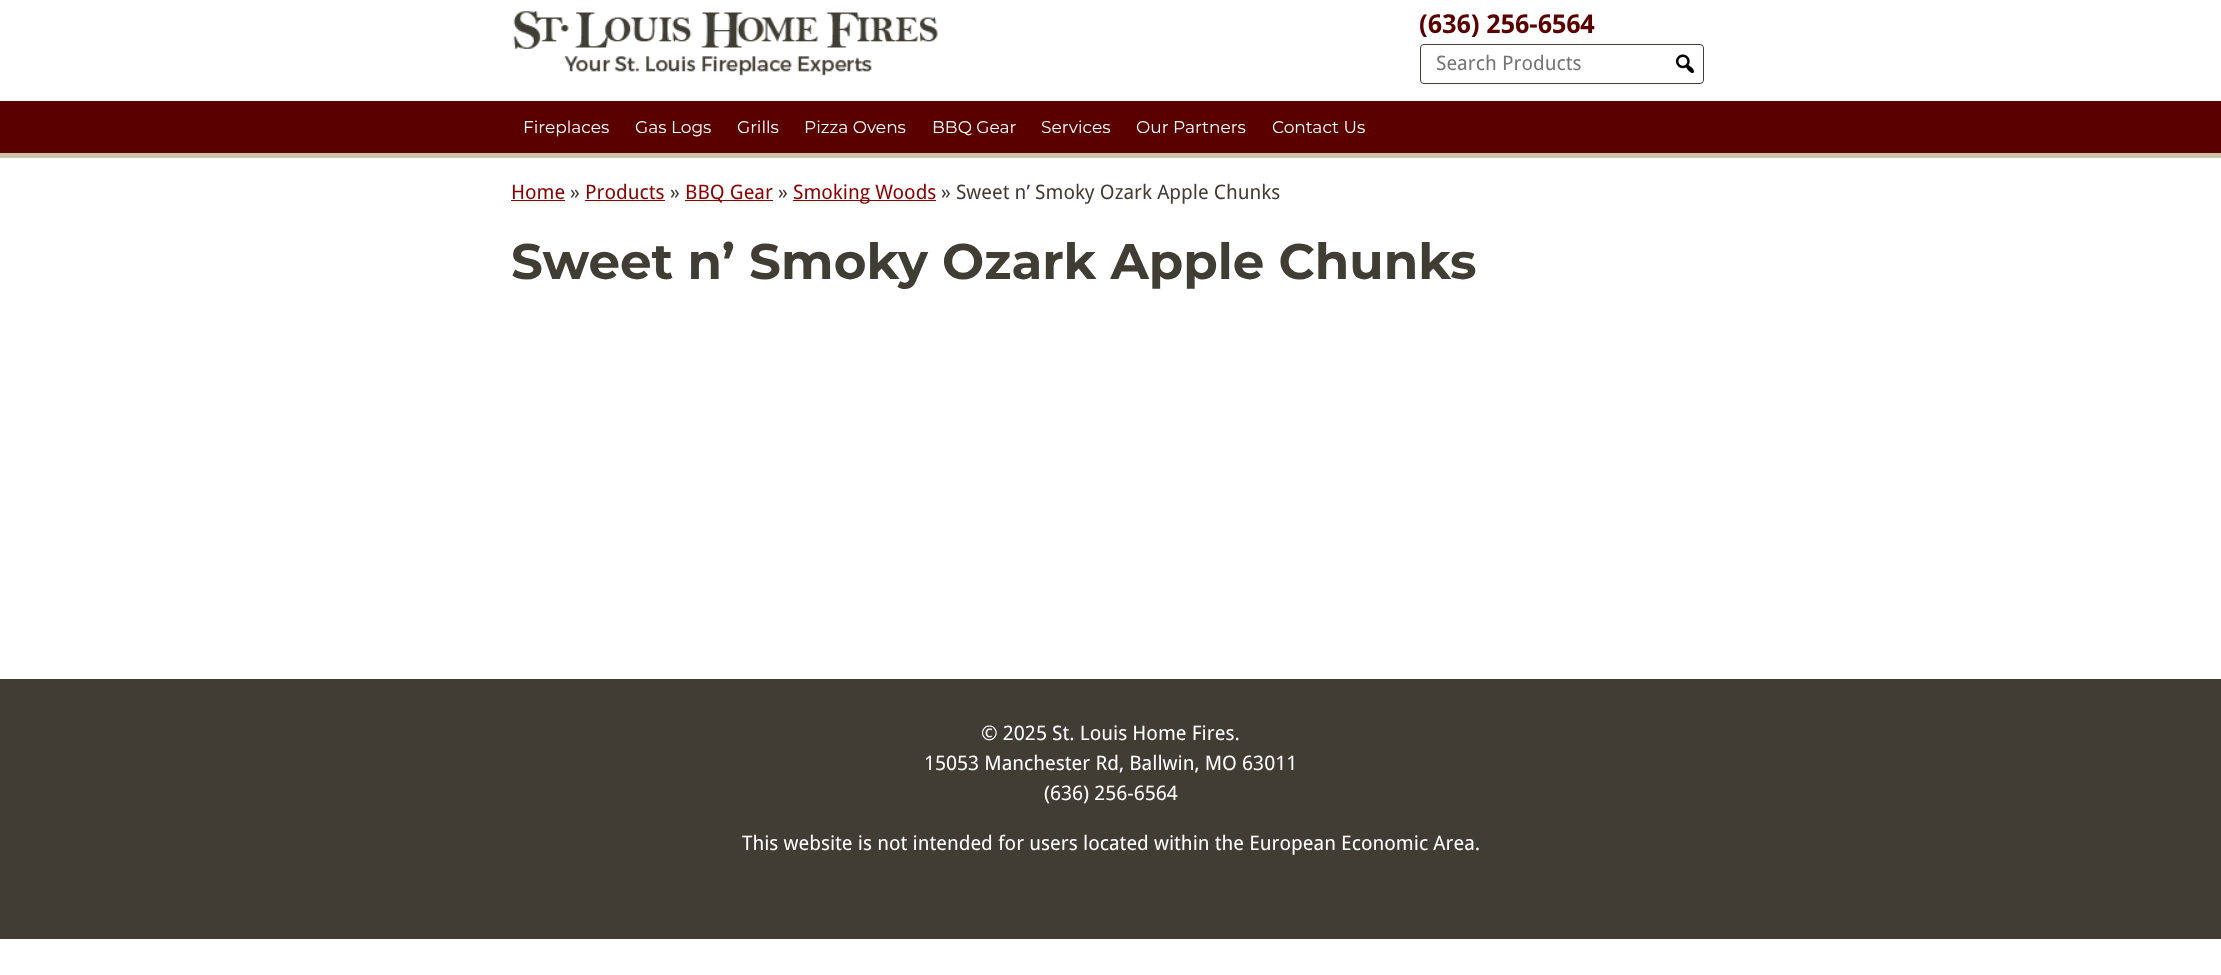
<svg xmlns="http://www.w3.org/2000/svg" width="2221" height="975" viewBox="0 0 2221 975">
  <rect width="100%" height="100%" fill="#ffffff"/>
  <image x="513" y="11" width="425" height="65" href="img1.png"/>
  <text x="1419" y="33" font-family="Droid Sans" font-size="26" font-weight="bold" fill="#5a0000">(636) 256-6564</text>
  <rect x="1420.5" y="44.5" width="283" height="39" rx="3.5" fill="none" stroke="#403d34"/>
  <text x="1436" y="70" font-family="Droid Sans" font-size="20" fill="#757575">Search Products</text>
  <image x="1676" y="54" width="18" height="19" href="img2.png"/>
  <rect x="0" y="101" width="2221" height="52" fill="#5a0000"/>
  <rect x="0" y="153" width="2221" height="5" fill="#cdc2a4"/>
  <text x="523" y="133" font-family="Montserrat" font-size="17" fill="#ffffff">Fireplaces</text>
  <text x="635" y="133" font-family="Montserrat" font-size="17" fill="#ffffff">Gas Logs</text>
  <text x="737" y="133" font-family="Montserrat" font-size="17" fill="#ffffff">Grills</text>
  <text x="804" y="133" font-family="Montserrat" font-size="17" fill="#ffffff">Pizza Ovens</text>
  <text x="932" y="133" font-family="Montserrat" font-size="17" fill="#ffffff">BBQ Gear</text>
  <text x="1041" y="133" font-family="Montserrat" font-size="17" fill="#ffffff">Services</text>
  <text x="1136" y="133" font-family="Montserrat" font-size="17" fill="#ffffff">Our Partners</text>
  <text x="1272" y="133" font-family="Montserrat" font-size="17" fill="#ffffff">Contact Us</text>
  <text x="511" y="199" font-family="Droid Sans" font-size="20" fill="#8c0000">Home</text>
  <rect x="511" y="200" width="54" height="1" fill="#8c0000"/>
  <text x="570" y="199" font-family="Droid Sans" font-size="20" fill="#403d34">»</text>
  <text x="585" y="199" font-family="Droid Sans" font-size="20" fill="#8c0000">Products</text>
  <rect x="585" y="200" width="80" height="1" fill="#8c0000"/>
  <text x="670" y="199" font-family="Droid Sans" font-size="20" fill="#403d34">»</text>
  <rect x="685" y="200" width="88" height="1" fill="#8c0000"/>
  <text x="685" y="199" font-family="Droid Sans" font-size="20" fill="#8c0000">BBQ Gear</text>
  <text x="778" y="199" font-family="Droid Sans" font-size="20" fill="#403d34">»</text>
  <rect x="793" y="200" width="143" height="1" fill="#8c0000"/>
  <text x="793" y="199" font-family="Droid Sans" font-size="20" fill="#8c0000">Smoking Woods</text>
  <text x="941" y="199" font-family="Droid Sans" font-size="20" fill="#403d34">» Sweet n’ Smoky Ozark Apple Chunks</text>
  <text x="511" y="279" font-family="Montserrat" font-size="50" font-weight="bold" fill="#403d34">Sweet n’ Smoky Ozark Apple Chunks</text>
  <rect x="0" y="679" width="2221" height="260" fill="#403d34"/>
  <text x="981" y="740" font-family="Droid Sans" font-size="20" fill="#ffffff">© 2025 St. Louis Home Fires.</text>
  <text x="924" y="770" font-family="Droid Sans" font-size="20" fill="#ffffff">15053 Manchester Rd, Ballwin, MO 63011</text>
  <text x="1044" y="800" font-family="Droid Sans" font-size="20" fill="#ffffff">(636) 256-6564</text>
  <text x="742" y="850" font-family="Droid Sans" font-size="20" fill="#ffffff">This website is not intended for users located within the European Economic Area.</text>
</svg>
